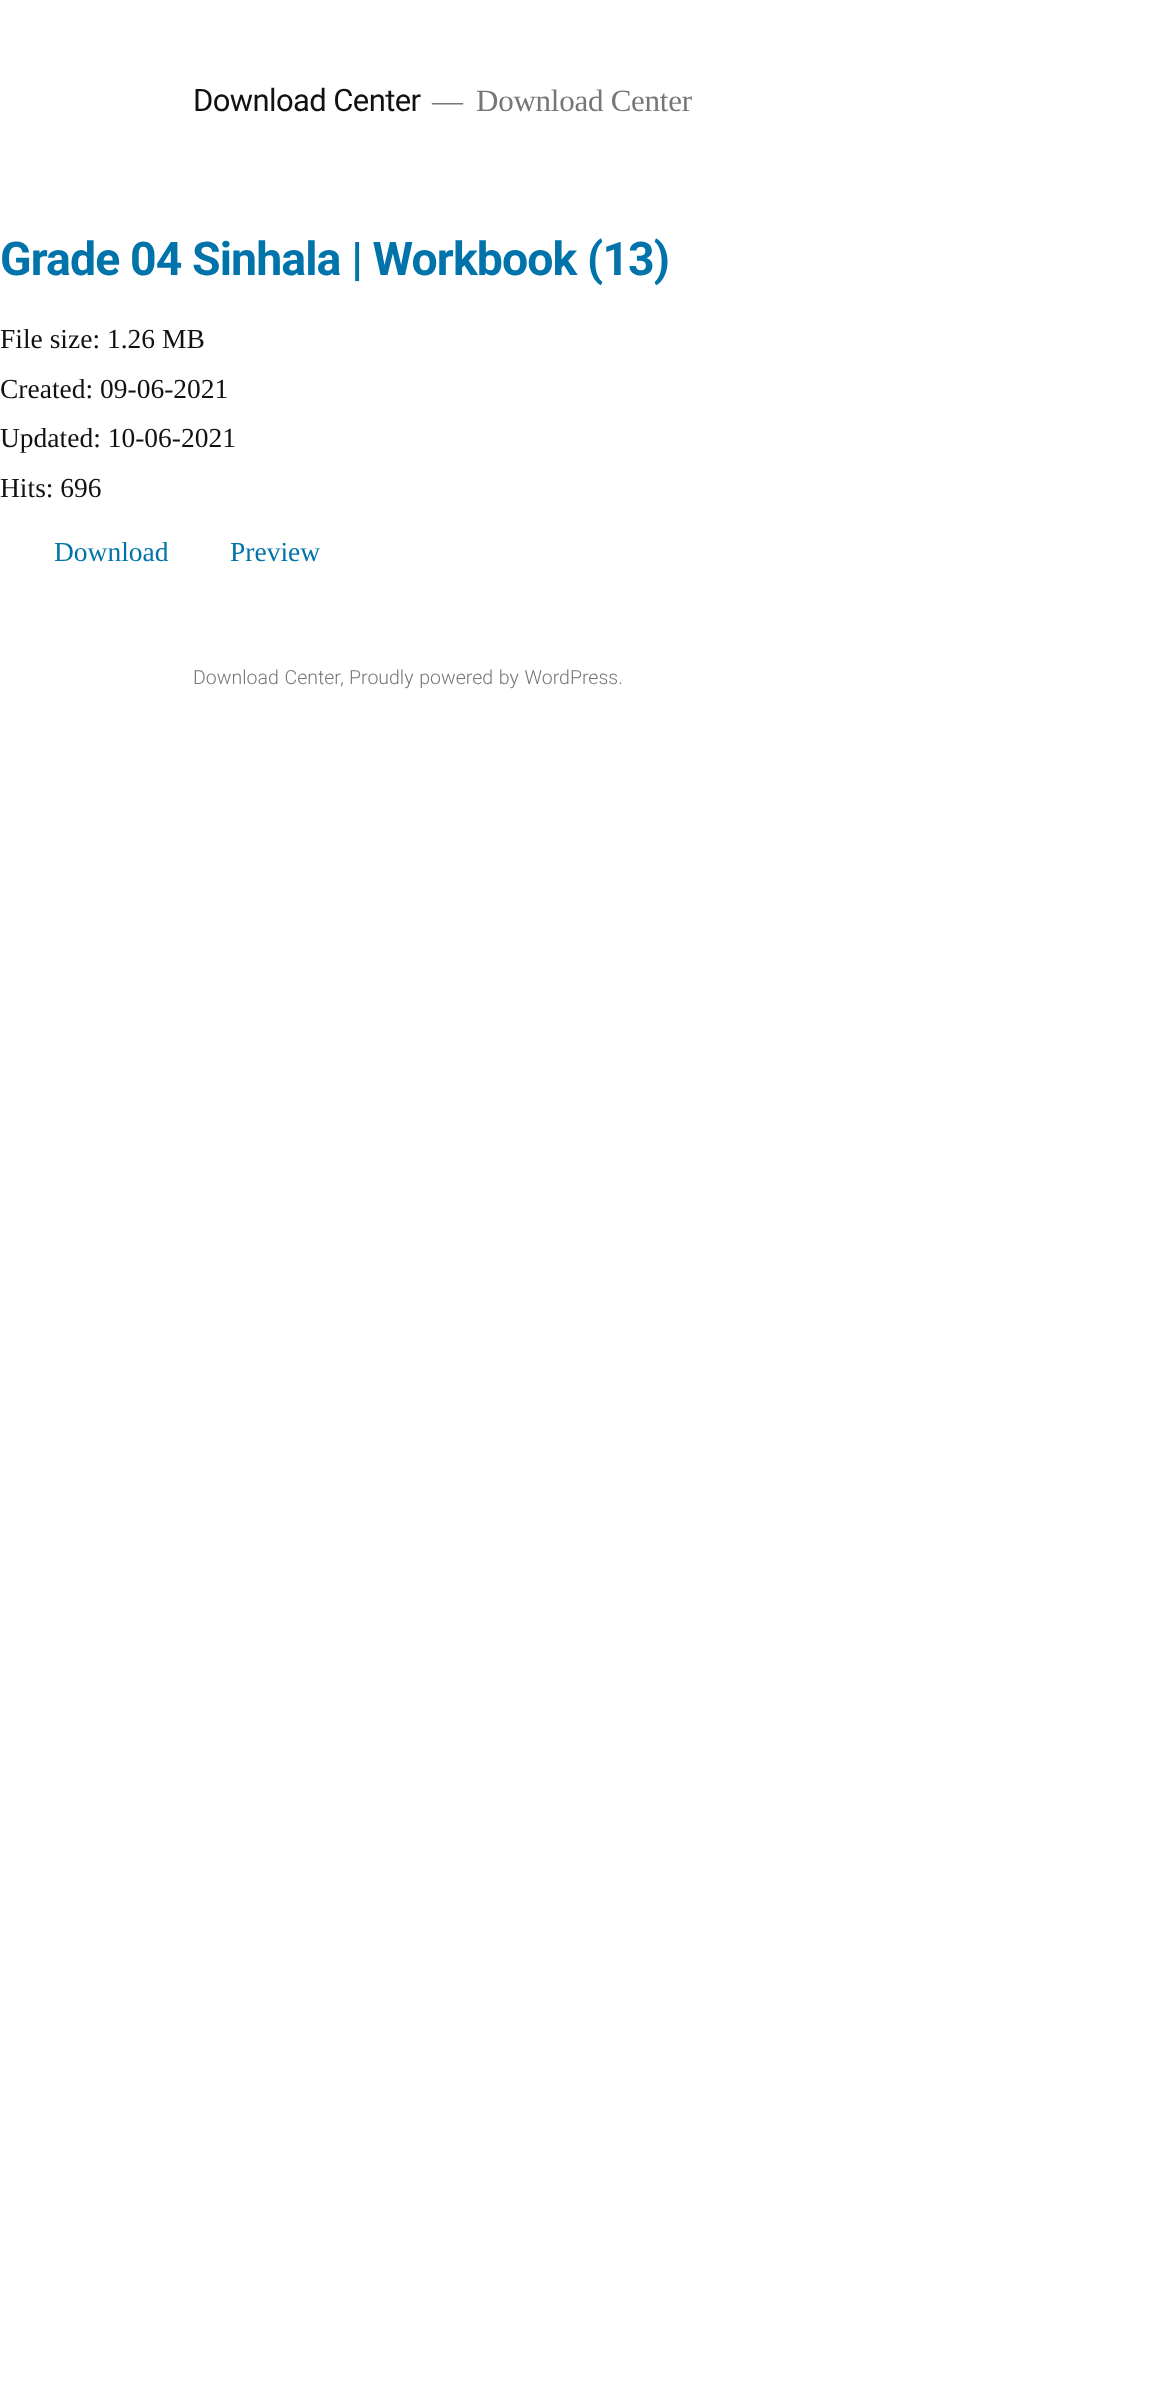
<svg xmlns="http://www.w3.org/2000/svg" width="1175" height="2398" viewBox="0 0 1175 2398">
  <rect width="100%" height="100%" fill="#ffffff"/>
  <text x="193" y="111" font-family="Roboto" font-size="31" letter-spacing="-0.6" fill="#111111">Download Center</text>
  <text x="432" y="111" font-family="Liberation Serif" font-size="31" letter-spacing="-0.25" fill="#767676">—</text>
  <text x="476" y="111" font-family="Liberation Serif" font-size="31" letter-spacing="-0.25" fill="#767676">Download Center</text>
  <text x="0" y="275" font-family="Roboto" font-size="46.4" font-weight="bold" letter-spacing="-0.9" fill="#0073aa">Grade 04 Sinhala | Workbook (13)</text>
  <text x="0" y="348" font-family="Liberation Serif" font-size="27.5" fill="#111111">File size: 1.26 MB</text>
  <text x="0" y="398" font-family="Liberation Serif" font-size="27.5" fill="#111111">Created: 09-06-2021</text>
  <text x="0" y="447" font-family="Liberation Serif" font-size="27.5" fill="#111111">Updated: 10-06-2021</text>
  <text x="0" y="497" font-family="Liberation Serif" font-size="27.5" fill="#111111">Hits: 696</text>
  <text x="54" y="561" font-family="Liberation Serif" font-size="27.5" fill="#0073aa">Download</text>
  <text x="230" y="561" font-family="Liberation Serif" font-size="27.5" fill="#0073aa">Preview</text>
  <text x="193" y="684" word-spacing="1" font-family="Roboto" font-size="19.5" font-weight="300" fill="#767676">Download Center</text>
  <text x="340" y="684" font-family="Roboto" font-size="19.5" font-weight="300" fill="#767676">,</text>
  <text x="349" y="684" word-spacing="1" font-family="Roboto" font-size="19.5" font-weight="300" fill="#767676">Proudly powered by WordPress.</text>
</svg>
